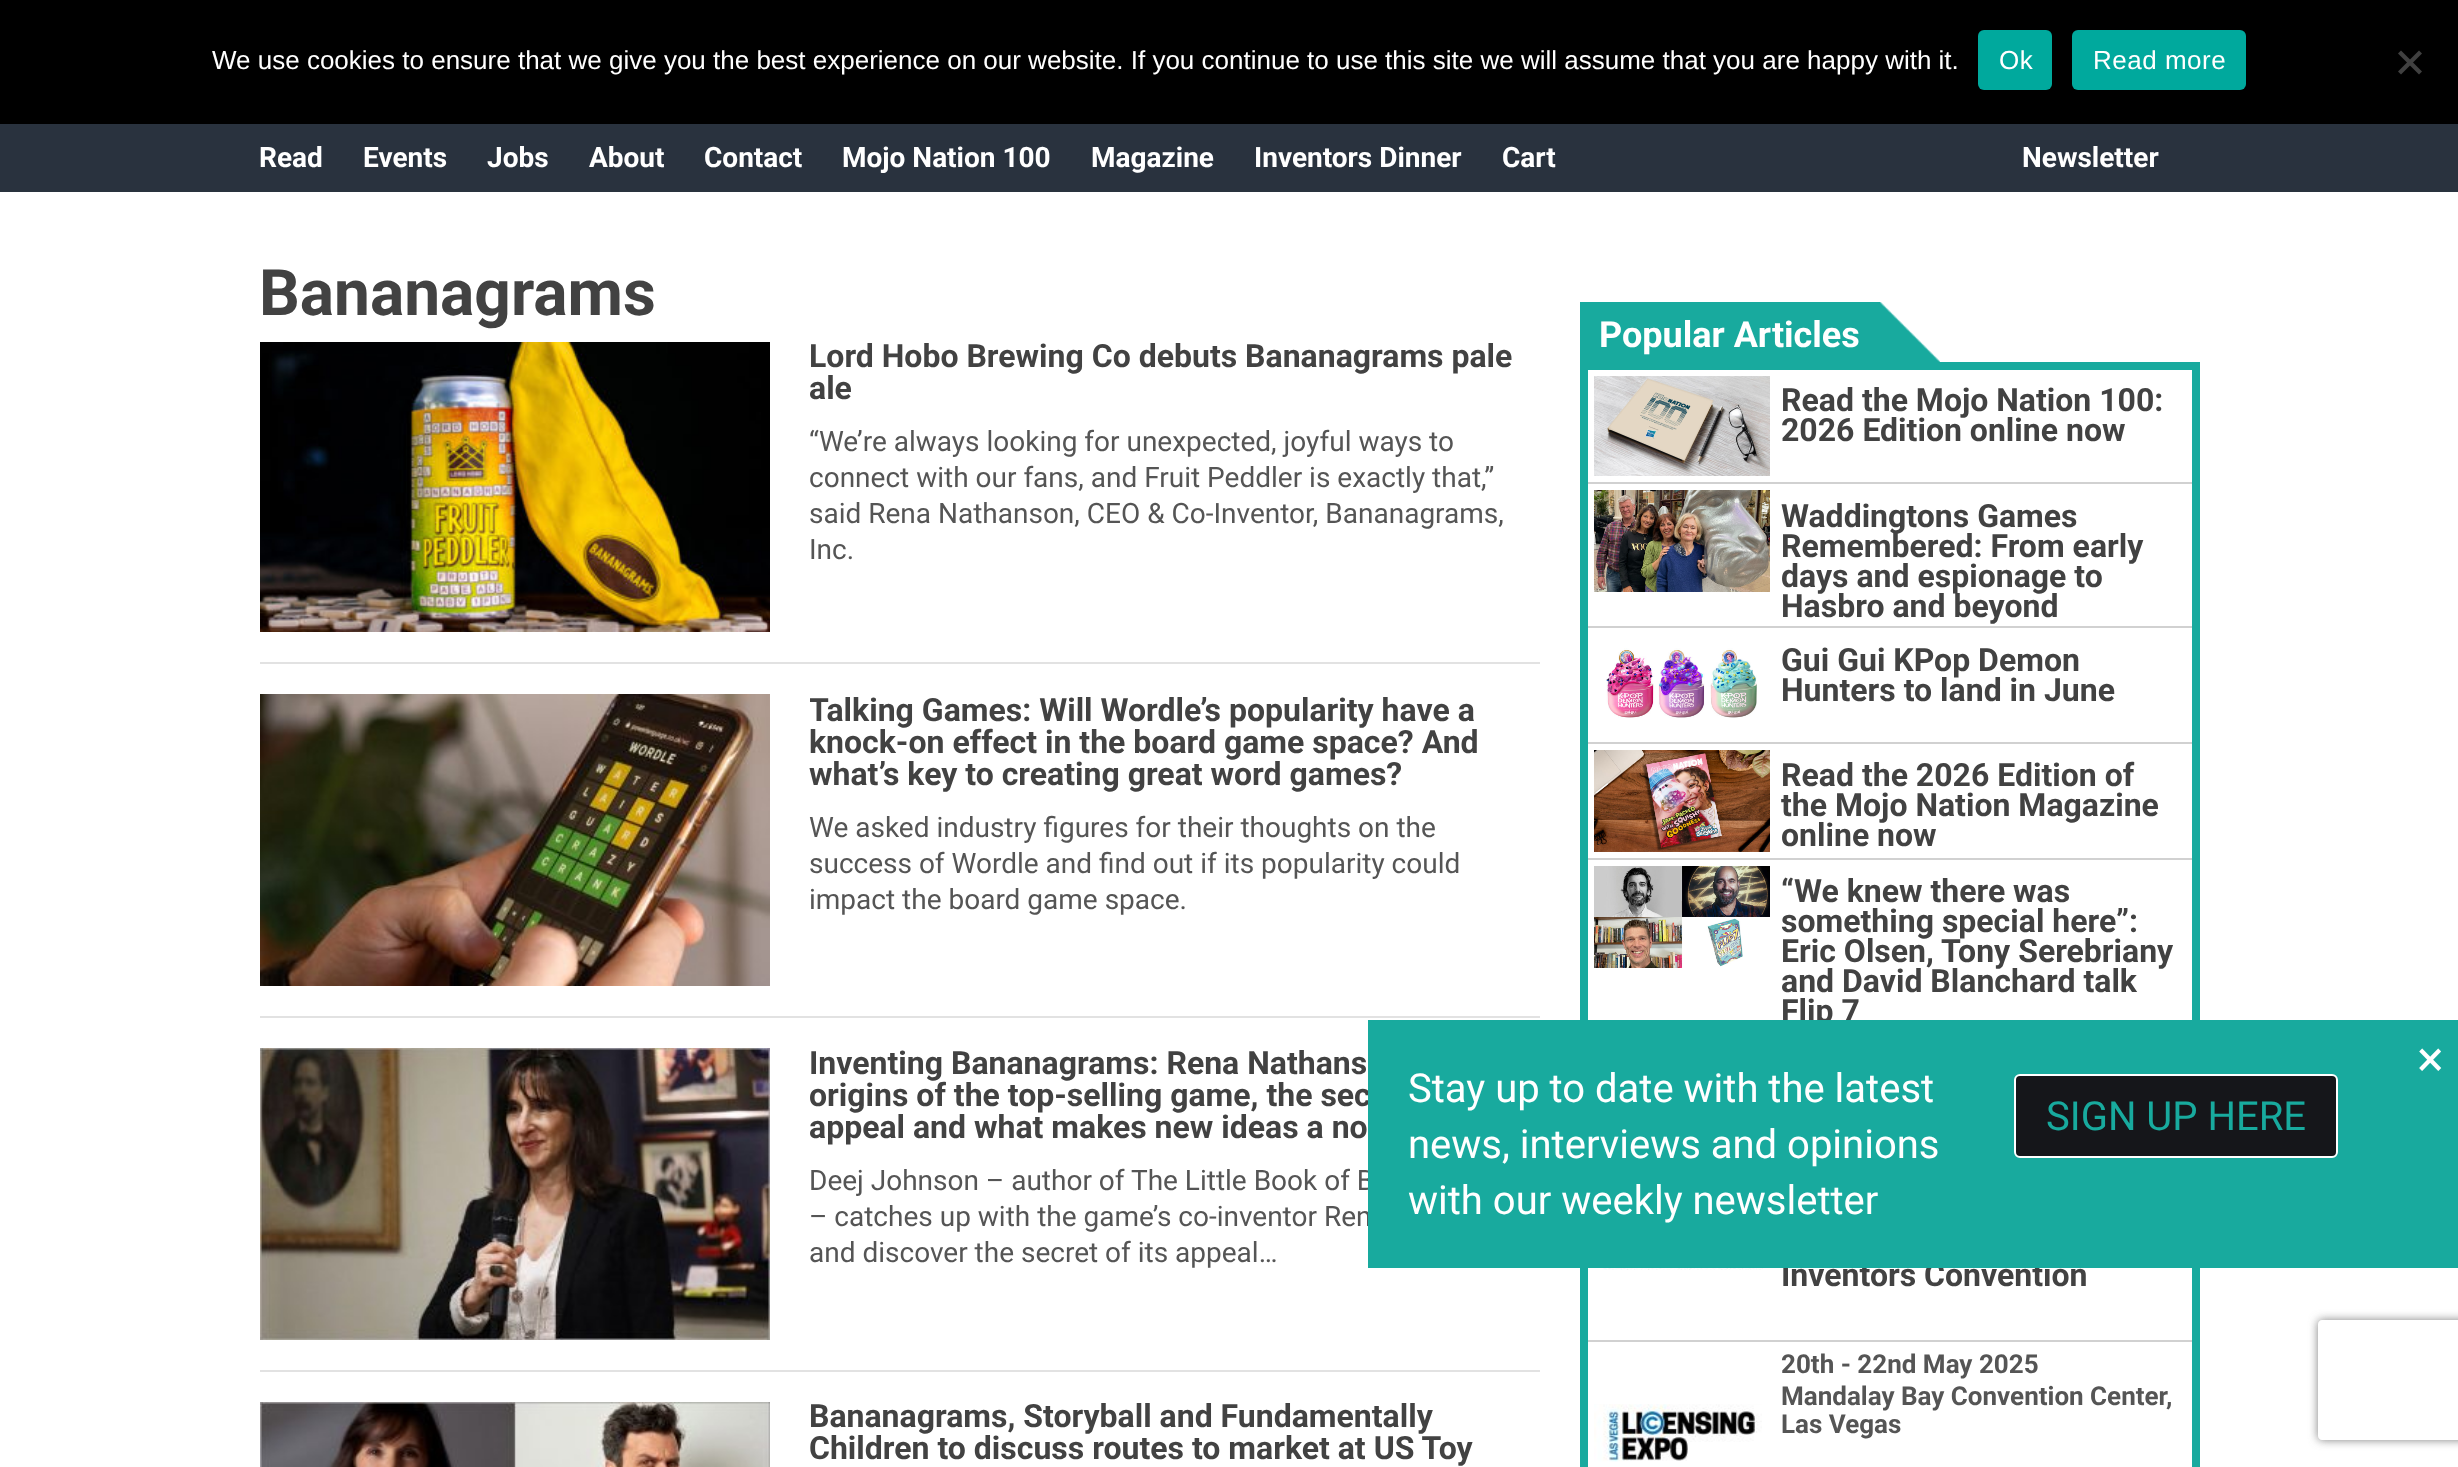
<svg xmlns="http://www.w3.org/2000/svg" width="2458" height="1467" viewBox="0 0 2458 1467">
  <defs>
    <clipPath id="clip1"><rect x="810" y="694" width="730" height="102"/></clipPath>
    <clipPath id="clip2"><path d="M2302 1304H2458V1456H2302ZM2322 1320H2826C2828 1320 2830 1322 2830 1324V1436C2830 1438 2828 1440 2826 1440H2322C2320 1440 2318 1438 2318 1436V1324C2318 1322 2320 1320 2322 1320Z" clip-rule="evenodd"/></clipPath>
    <filter id="blur1" x="-50%" y="-200%" width="200%" height="500%"><feGaussianBlur stdDeviation="5"/></filter>
  </defs>
  <rect width="100%" height="100%" fill="#ffffff"/>
  <rect x="0" y="0" width="2458" height="124" fill="#000000"/>
  <text x="212" y="69" font-family="Liberation Sans" font-size="26" fill="#ffffff">We use cookies to ensure that we give you the best experience on our website. If you continue to use this site we will assume that you are happy with it.</text>
  <rect x="1978" y="30" width="74" height="60" rx="6" fill="#00a99d"/>
  <text x="1999" y="69" font-family="Liberation Sans" font-size="26" letter-spacing="0.5" fill="#ffffff">Ok</text>
  <rect x="2072" y="30" width="174" height="60" rx="6" fill="#00a99d"/>
  <text x="2093" y="69" font-family="Liberation Sans" font-size="26" letter-spacing="0.5" fill="#ffffff">Read more</text>
  <path d="M2419 50.5L2422 53.5L2401 74.5L2398 71.5Z" fill="#404040"/>
  <path d="M2398 53.5L2401 50.5L2422 71.5L2419 74.5Z" fill="#404040"/>
  <rect x="0" y="124" width="2458" height="68" fill="#29323e"/>
  <text x="259" y="167" font-family="Roboto" font-size="28" font-weight="bold" fill="#ffffff">Read</text>
  <text x="363" y="167" font-family="Roboto" font-size="28" font-weight="bold" fill="#ffffff">Events</text>
  <text x="487" y="167" font-family="Roboto" font-size="28" font-weight="bold" fill="#ffffff">Jobs</text>
  <text x="589" y="167" font-family="Roboto" font-size="28" font-weight="bold" fill="#ffffff">About</text>
  <text x="704" y="167" font-family="Roboto" font-size="28" font-weight="bold" fill="#ffffff">Contact</text>
  <text x="842" y="167" font-family="Roboto" font-size="28" font-weight="bold" fill="#ffffff">Mojo Nation 100</text>
  <text x="1091" y="167" font-family="Roboto" font-size="28" font-weight="bold" fill="#ffffff">Magazine</text>
  <text x="1254" y="167" font-family="Roboto" font-size="28" font-weight="bold" fill="#ffffff">Inventors Dinner</text>
  <text x="1502" y="167" font-family="Roboto" font-size="28" font-weight="bold" fill="#ffffff">Cart</text>
  <text x="2022" y="167" font-family="Roboto" font-size="28" font-weight="bold" fill="#ffffff">Newsletter</text>
  <text x="259" y="315" font-family="Roboto" font-size="64" font-weight="bold" fill="#424242">Bananagrams</text>
  <rect x="260" y="662" width="1280" height="2" fill="#e2e2e2"/>
  <image x="260" y="342" width="510" height="290" href="img1.png"/>
  <text x="809" y="367" font-family="Roboto" font-size="32" font-weight="bold" fill="#424242">Lord Hobo Brewing Co debuts Bananagrams pale</text>
  <text x="809" y="399" font-family="Roboto" font-size="32" font-weight="bold" fill="#424242">ale</text>
  <text x="809" y="451" font-family="Roboto" font-size="28" fill="#555555">“We’re always looking for unexpected, joyful ways to</text>
  <text x="809" y="487" font-family="Roboto" font-size="28" fill="#555555">connect with our fans, and Fruit Peddler is exactly that,”</text>
  <text x="809" y="523" font-family="Roboto" font-size="28" fill="#555555">said Rena Nathanson, CEO &amp; Co-Inventor, Bananagrams,</text>
  <text x="809" y="559" font-family="Roboto" font-size="28" fill="#555555">Inc.</text>
  <rect x="260" y="1016" width="1280" height="2" fill="#e2e2e2"/>
  <image x="260" y="694" width="510" height="292" href="img2.png"/>
  <g clip-path="url(#clip1)">
    <text x="809" y="721" font-family="Roboto" font-size="32" font-weight="bold" fill="#424242">Talking Games: Will Wordle’s popularity have a</text>
  </g>
  <text x="809" y="753" font-family="Roboto" font-size="32" font-weight="bold" fill="#424242">knock-on effect in the board game space? And</text>
  <text x="809" y="785" font-family="Roboto" font-size="32" font-weight="bold" fill="#424242">what’s key to creating great word games?</text>
  <text x="809" y="837" font-family="Roboto" font-size="28" fill="#555555">We asked industry figures for their thoughts on the</text>
  <text x="809" y="873" font-family="Roboto" font-size="28" fill="#555555">success of Wordle and find out if its popularity could</text>
  <text x="809" y="909" font-family="Roboto" font-size="28" fill="#555555">impact the board game space.</text>
  <rect x="260" y="1370" width="1280" height="2" fill="#e2e2e2"/>
  <image x="260" y="1048" width="510" height="292" href="img3.png"/>
  <text x="809" y="1074" font-family="Roboto" font-size="32" font-weight="bold" fill="#424242">Inventing Bananagrams: Rena Nathans</text>
  <text x="809" y="1106" font-family="Roboto" font-size="32" font-weight="bold" fill="#424242">origins of the top-selling game, the sec</text>
  <text x="809" y="1138" font-family="Roboto" font-size="32" font-weight="bold" fill="#424242">appeal and what makes new ideas a no</text>
  <text x="809" y="1190" font-family="Roboto" font-size="28" fill="#555555">Deej Johnson – author of The Little Book of B</text>
  <text x="809" y="1226" font-family="Roboto" font-size="28" fill="#555555">– catches up with the game’s co-inventor Ren</text>
  <text x="809" y="1262" font-family="Roboto" font-size="28" fill="#555555">and discover the secret of its appeal…</text>
  <image x="260" y="1402" width="510" height="65" href="img4.png"/>
  <text x="809" y="1427" font-family="Roboto" font-size="32" font-weight="bold" fill="#424242">Bananagrams, Storyball and Fundamentally</text>
  <text x="809" y="1459" font-family="Roboto" font-size="32" font-weight="bold" fill="#424242">Children to discuss routes to market at US Toy</text>
  <rect x="1580" y="302" width="300" height="60" fill="#18aa9e"/>
  <text x="1599" y="347" font-family="Roboto" font-size="36" font-weight="bold" fill="#ffffff">Popular Articles</text>
  <image x="1880" y="302" width="60" height="60" href="img5.png"/>
  <rect x="1580" y="362" width="620" height="658" fill="#18aa9e"/>
  <rect x="1588" y="370" width="604" height="112" fill="#ffffff"/>
  <rect x="1588" y="482" width="604" height="2" fill="#d1d1d1"/>
  <image x="1594" y="376" width="176" height="100" href="img6.png"/>
  <text x="1781" y="411" font-family="Roboto" font-size="32" font-weight="bold" fill="#424242">Read the Mojo Nation 100:</text>
  <text x="1781" y="441" font-family="Roboto" font-size="32" font-weight="bold" fill="#424242">2026 Edition online now</text>
  <rect x="1588" y="484" width="604" height="142" fill="#ffffff"/>
  <rect x="1588" y="626" width="604" height="2" fill="#d1d1d1"/>
  <image x="1594" y="490" width="176" height="102" href="img7.png"/>
  <text x="1781" y="527" font-family="Roboto" font-size="32" font-weight="bold" fill="#424242">Waddingtons Games</text>
  <text x="1781" y="557" font-family="Roboto" font-size="32" font-weight="bold" fill="#424242">Remembered: From early</text>
  <text x="1781" y="587" font-family="Roboto" font-size="32" font-weight="bold" fill="#424242">days and espionage to</text>
  <text x="1781" y="617" font-family="Roboto" font-size="32" font-weight="bold" fill="#424242">Hasbro and beyond</text>
  <rect x="1588" y="628" width="604" height="114" fill="#ffffff"/>
  <rect x="1588" y="742" width="604" height="2" fill="#d1d1d1"/>
  <image x="1606" y="648" width="151" height="70" href="img8.png"/>
  <text x="1781" y="671" font-family="Roboto" font-size="32" font-weight="bold" fill="#424242">Gui Gui KPop Demon</text>
  <text x="1781" y="701" font-family="Roboto" font-size="32" font-weight="bold" fill="#424242">Hunters to land in June</text>
  <rect x="1588" y="744" width="604" height="114" fill="#ffffff"/>
  <rect x="1588" y="858" width="604" height="2" fill="#d1d1d1"/>
  <image x="1594" y="750" width="176" height="102" href="img9.png"/>
  <text x="1781" y="786" font-family="Roboto" font-size="32" font-weight="bold" fill="#424242">Read the 2026 Edition of</text>
  <text x="1781" y="816" font-family="Roboto" font-size="32" font-weight="bold" fill="#424242">the Mojo Nation Magazine</text>
  <text x="1781" y="846" font-family="Roboto" font-size="32" font-weight="bold" fill="#424242">online now</text>
  <rect x="1588" y="860" width="604" height="160" fill="#ffffff"/>
  <image x="1594" y="866" width="176" height="102" href="img10.png"/>
  <text x="1781" y="902" font-family="Roboto" font-size="32" font-weight="bold" fill="#424242">“We knew there was</text>
  <text x="1781" y="932" font-family="Roboto" font-size="32" font-weight="bold" fill="#424242">something special here”:</text>
  <text x="1781" y="962" font-family="Roboto" font-size="32" font-weight="bold" fill="#424242">Eric Olsen, Tony Serebriany</text>
  <text x="1781" y="992" font-family="Roboto" font-size="32" font-weight="bold" fill="#424242">and David Blanchard talk</text>
  <text x="1781" y="1022" font-family="Roboto" font-size="32" font-weight="bold" fill="#424242">Flip 7</text>
  <rect x="1580" y="1268" width="620" height="199" fill="#18aa9e"/>
  <rect x="1588" y="1268" width="604" height="72" fill="#ffffff"/>
  <rect x="1588" y="1340" width="604" height="2" fill="#d1d1d1"/>
  <image x="1603" y="1268" width="160" height="2" href="img11.png"/>
  <text x="1781" y="1286" font-family="Roboto" font-size="32" font-weight="bold" fill="#424242">Inventors Convention</text>
  <rect x="1588" y="1342" width="604" height="125" fill="#ffffff"/>
  <image x="1594" y="1404" width="168" height="58" href="img12.png"/>
  <text x="1781" y="1373" font-family="Roboto" font-size="26" font-weight="bold" fill="#555555">20th - 22nd May 2025</text>
  <text x="1781" y="1405" font-family="Roboto" font-size="26" font-weight="bold" fill="#555555">Mandalay Bay Convention Center,</text>
  <text x="1781" y="1433" font-family="Roboto" font-size="26" font-weight="bold" fill="#555555">Las Vegas</text>
  <rect x="1368" y="1020" width="1090" height="248" fill="#18aa9e"/>
  <text x="2417" y="1076" font-family="Roboto" font-size="50" fill="#ffffff">×</text>
  <text x="1408" y="1102" font-family="Roboto" font-size="40" fill="#ffffff">Stay up to date with the latest</text>
  <text x="1408" y="1158" font-family="Roboto" font-size="40" fill="#ffffff">news, interviews and opinions</text>
  <text x="1408" y="1214" font-family="Roboto" font-size="40" fill="#ffffff">with our weekly newsletter</text>
  <rect x="2015" y="1075" width="322" height="82" rx="5" fill="#15161a" stroke="#ffffff" stroke-width="2"/>
  <text x="2046" y="1130" font-family="Roboto" font-size="40" fill="#18aa9e">SIGN UP HERE</text>
  <g clip-path="url(#clip2)">
    <rect x="2318" y="1320" width="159" height="120" rx="4" fill="#808080" filter="url(#blur1)"/>
  </g>
</svg>
